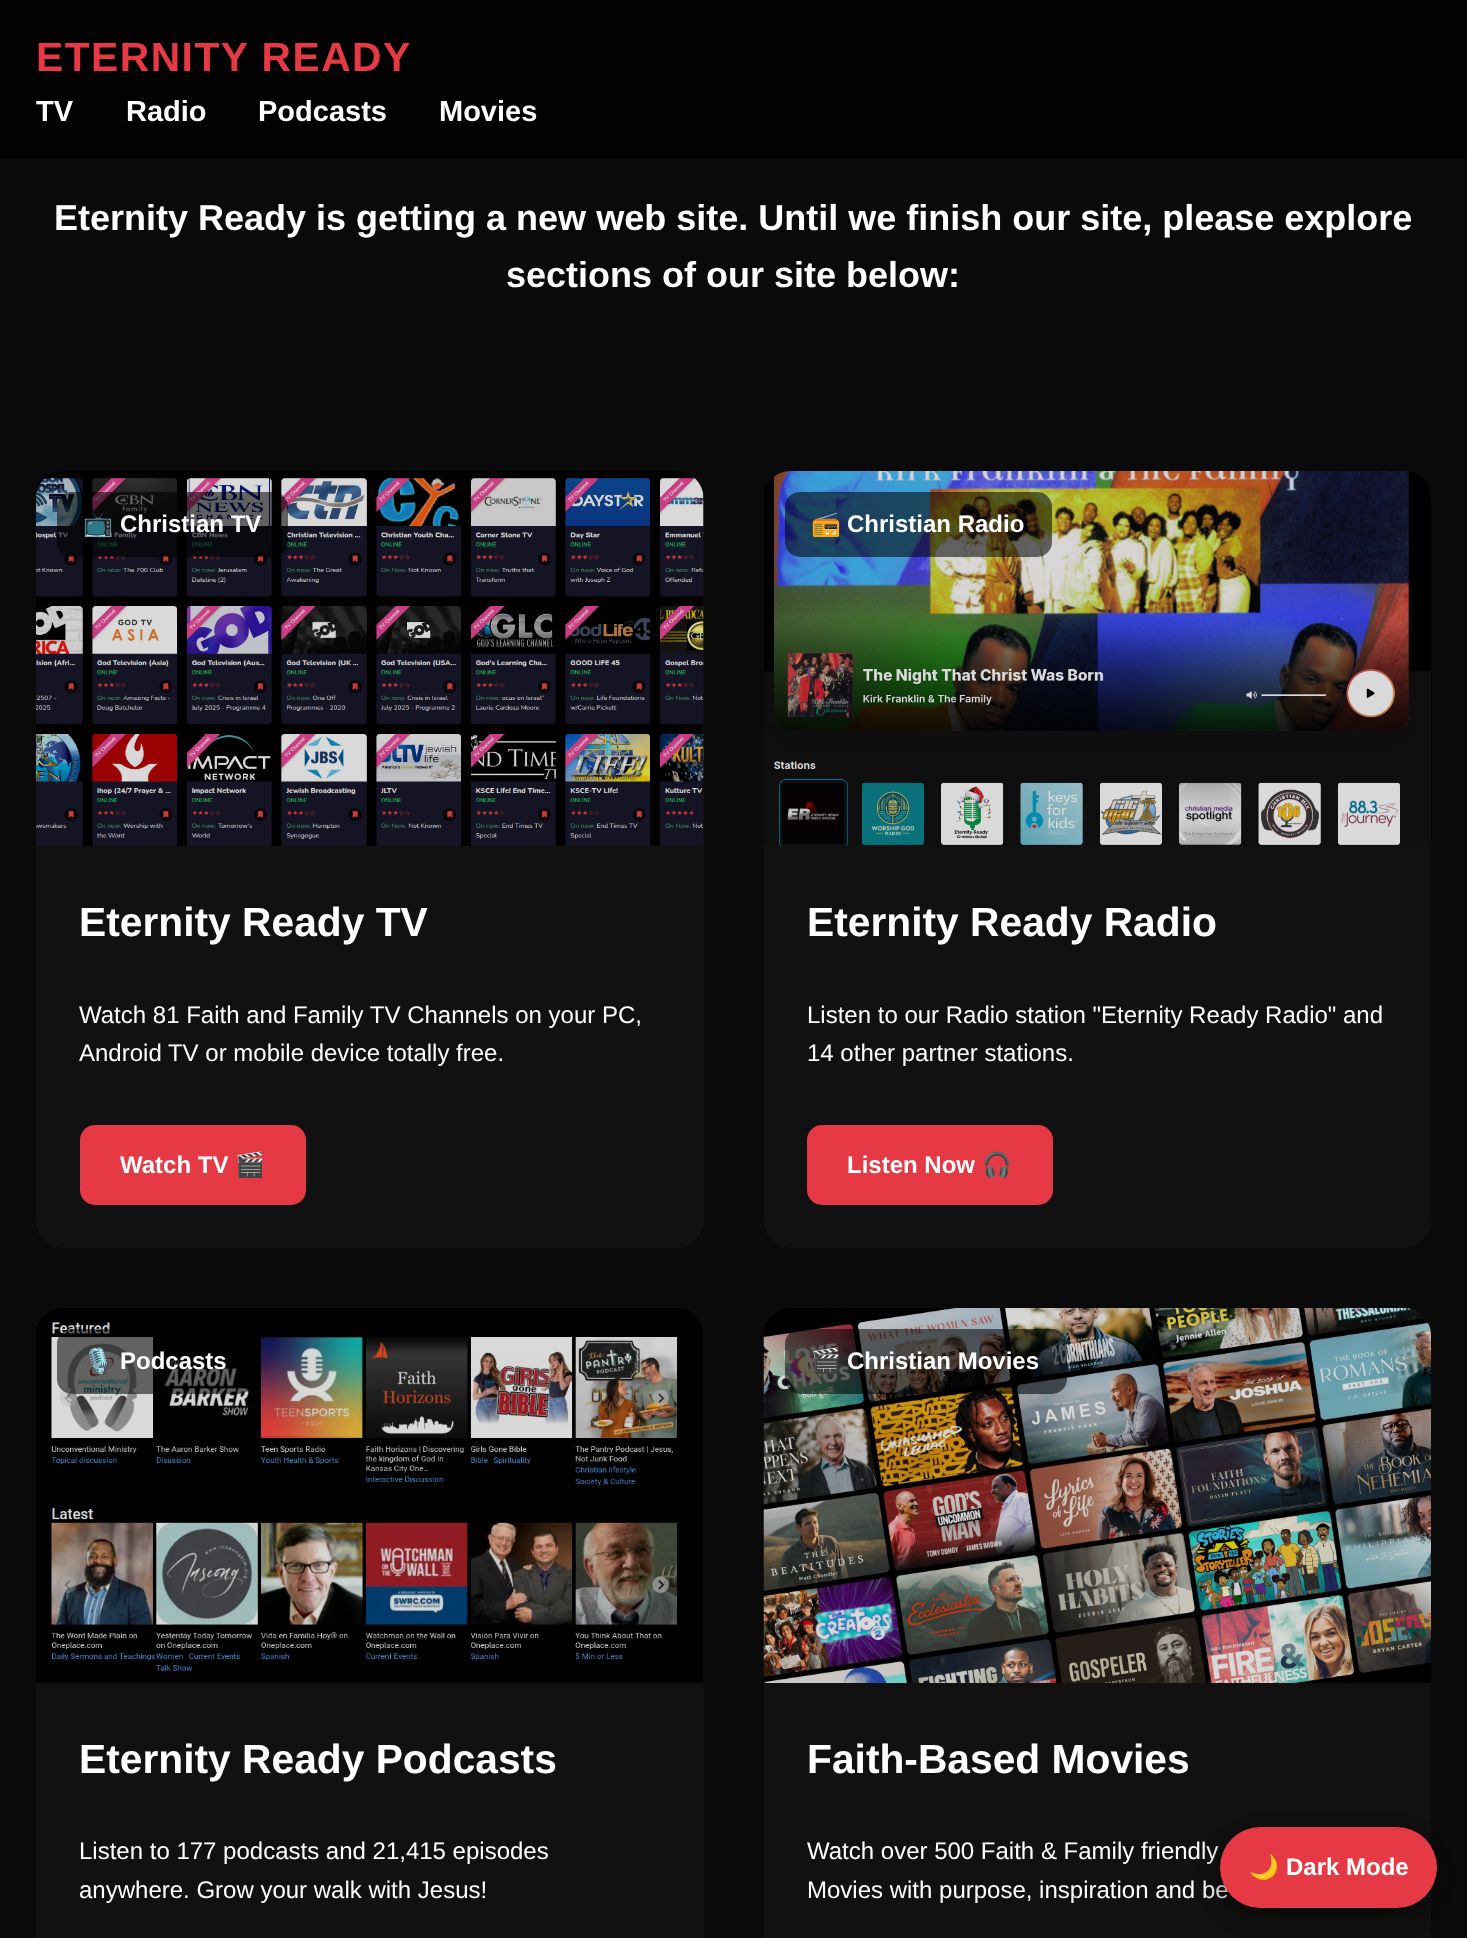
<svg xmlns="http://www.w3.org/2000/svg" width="1467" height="1938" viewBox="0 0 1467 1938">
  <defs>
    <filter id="blur1" x="-50%" y="-200%" width="200%" height="500%"><feGaussianBlur stdDeviation="16.5"/></filter>
  </defs>
  <rect width="100%" height="100%" fill="#0a0a0a"/>
  <rect x="0" y="0" width="1467" height="159" fill="#020202"/>
  <text x="36" y="71" font-family="Liberation Sans" font-size="40.75" font-weight="bold" letter-spacing="1.5" fill="#e63946">ETERNITY READY</text>
  <text x="36" y="121" font-family="Liberation Sans" font-size="29" font-weight="bold" fill="#ffffff">TV</text>
  <text x="126" y="121" font-family="Liberation Sans" font-size="29" font-weight="bold" fill="#ffffff">Radio</text>
  <text x="258" y="121" font-family="Liberation Sans" font-size="29" font-weight="bold" fill="#ffffff">Podcasts</text>
  <text x="439" y="121" font-family="Liberation Sans" font-size="29" font-weight="bold" fill="#ffffff">Movies</text>
  <text x="54" y="230" font-family="Liberation Sans" font-size="36" font-weight="bold" fill="#ffffff">Eternity Ready is getting a new web site. Until we finish our site, please explore</text>
  <text x="506" y="287" font-family="Liberation Sans" font-size="36" font-weight="bold" fill="#ffffff">sections of our site below:</text>
  <rect x="36" y="471" width="668" height="777" rx="27" fill="#111111"/>
  <image x="36" y="471" width="668" height="375" href="img1.png"/>
  <rect x="57" y="492" width="231" height="65" rx="15" fill="#000000" fill-opacity="0.55"/>
  <text x="83" y="532" font-family="Noto Color Emoji" font-size="24" font-weight="bold" fill="#ffffff">📺</text>
  <text x="120" y="532" font-family="Liberation Sans" font-size="24" font-weight="bold" fill="#ffffff">Christian TV</text>
  <text x="79" y="936" font-family="Liberation Sans" font-size="40.75" font-weight="bold" fill="#ffffff">Eternity Ready TV</text>
  <text x="79" y="1023" font-family="Liberation Sans" font-size="24" fill="#ffffff">Watch 81 Faith and Family TV Channels on your PC,</text>
  <text x="79" y="1061" font-family="Liberation Sans" font-size="24" fill="#ffffff">Android TV or mobile device totally free.</text>
  <rect x="80" y="1125" width="226" height="80" rx="15" fill="#e63946"/>
  <text x="120" y="1173" font-family="Liberation Sans" font-size="24" font-weight="bold" fill="#ffffff">Watch TV</text>
  <text x="235" y="1173" font-family="Noto Color Emoji" font-size="24" font-weight="bold" fill="#ffffff">🎬</text>
  <rect x="764" y="471" width="667" height="777" rx="27" fill="#111111"/>
  <image x="764" y="471" width="667" height="375" href="img2.png"/>
  <rect x="785" y="492" width="267" height="65" rx="15" fill="#000000" fill-opacity="0.55"/>
  <text x="811" y="532" font-family="Noto Color Emoji" font-size="24" font-weight="bold" fill="#ffffff">📻</text>
  <text x="847" y="532" font-family="Liberation Sans" font-size="24" font-weight="bold" fill="#ffffff">Christian Radio</text>
  <text x="807" y="936" font-family="Liberation Sans" font-size="40.75" font-weight="bold" fill="#ffffff">Eternity Ready Radio</text>
  <text x="807" y="1023" font-family="Liberation Sans" font-size="24" fill="#ffffff">Listen to our Radio station "Eternity Ready Radio" and</text>
  <text x="807" y="1061" font-family="Liberation Sans" font-size="24" fill="#ffffff">14 other partner stations.</text>
  <rect x="807" y="1125" width="246" height="80" rx="15" fill="#e63946"/>
  <text x="847" y="1173" font-family="Liberation Sans" font-size="24" font-weight="bold" fill="#ffffff">Listen Now</text>
  <text x="982" y="1173" font-family="Noto Color Emoji" font-size="24" font-weight="bold" fill="#ffffff">🎧</text>
  <rect x="36" y="1308" width="668" height="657" rx="27" fill="#111111"/>
  <image x="36" y="1308" width="668" height="375" href="img3.png"/>
  <rect x="57" y="1329" width="197" height="65" rx="15" fill="#000000" fill-opacity="0.55"/>
  <text x="83" y="1369" font-family="Noto Color Emoji" font-size="24" font-weight="bold" fill="#ffffff">🎙️</text>
  <text x="120" y="1369" font-family="Liberation Sans" font-size="24" font-weight="bold" fill="#ffffff">Podcasts</text>
  <text x="79" y="1773" font-family="Liberation Sans" font-size="40.75" font-weight="bold" fill="#ffffff">Eternity Ready Podcasts</text>
  <text x="79" y="1859" font-family="Liberation Sans" font-size="24" fill="#ffffff">Listen to 177 podcasts and 21,415 episodes</text>
  <text x="79" y="1898" font-family="Liberation Sans" font-size="24" fill="#ffffff">anywhere. Grow your walk with Jesus!</text>
  <rect x="764" y="1308" width="667" height="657" rx="27" fill="#111111"/>
  <image x="763" y="1308" width="668" height="375" href="img4.png"/>
  <rect x="785" y="1329" width="282" height="65" rx="15" fill="#000000" fill-opacity="0.55"/>
  <text x="811" y="1369" font-family="Noto Color Emoji" font-size="24" font-weight="bold" fill="#ffffff">🎬</text>
  <text x="847" y="1369" font-family="Liberation Sans" font-size="24" font-weight="bold" fill="#ffffff">Christian Movies</text>
  <text x="807" y="1773" font-family="Liberation Sans" font-size="40.75" font-weight="bold" fill="#ffffff">Faith-Based Movies</text>
  <text x="807" y="1859" font-family="Liberation Sans" font-size="24" fill="#ffffff">Watch over 500 Faith &amp; Family friendly</text>
  <text x="807" y="1898" font-family="Liberation Sans" font-size="24" fill="#ffffff">Movies with purpose, inspiration and be</text>
  <rect x="1220" y="1836" width="217" height="81" rx="40.5" fill="#000000" fill-opacity="0.55" filter="url(#blur1)"/>
  <rect x="1220" y="1827" width="217" height="81" rx="40.5" fill="#e63946"/>
  <text x="1249" y="1875" font-family="Noto Color Emoji" font-size="24" font-weight="bold" fill="#ffffff">🌙</text>
  <text x="1286" y="1875" font-family="Liberation Sans" font-size="24" font-weight="bold" fill="#ffffff">Dark Mode</text>
</svg>
